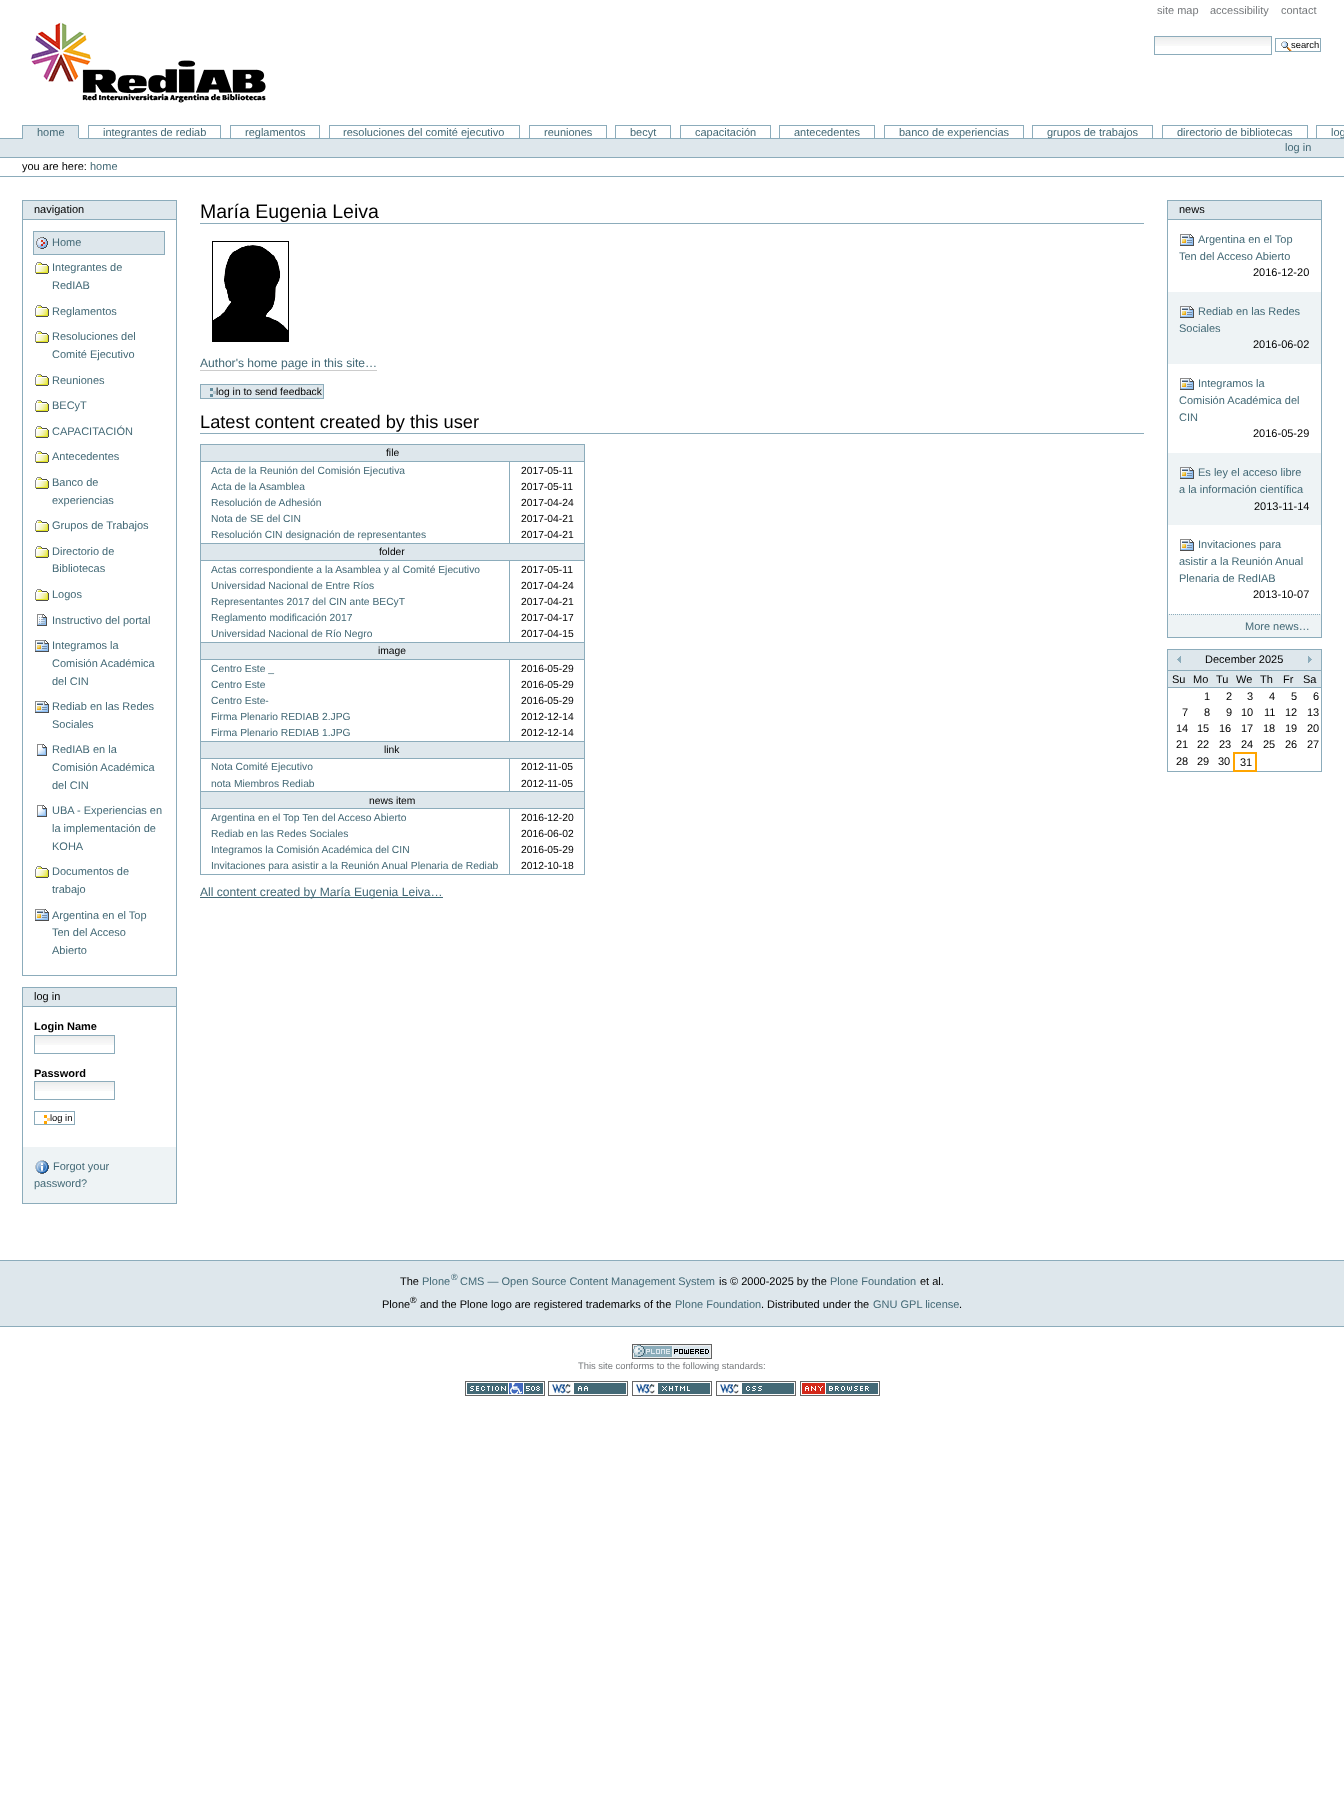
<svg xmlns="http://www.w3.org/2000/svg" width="1344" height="1817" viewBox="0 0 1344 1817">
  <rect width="100%" height="100%" fill="#ffffff"/>
  <text x="1157" y="14" font-family="Liberation Sans" font-size="11" fill="#76797c">site map</text>
  <text x="1210" y="14" font-family="Liberation Sans" font-size="11" fill="#76797c">accessibility</text>
  <text x="1281" y="14" font-family="Liberation Sans" font-size="11" fill="#76797c">contact</text>
  <image x="30" y="22" width="236" height="81" href="img1.png"/>
  <image x="1155" y="37" width="116" height="9" href="img2.png"/>
  <rect x="1154.5" y="36.5" width="117" height="18" fill="none" stroke="#8cacbb"/>
  <image x="1281" y="41" width="11" height="10" href="img3.png"/>
  <rect x="1275.5" y="38.5" width="45" height="13" fill="none" stroke="#8cacbb"/>
  <text x="1291" y="48" font-family="Liberation Sans" font-size="9.4" fill="#000000">search</text>
  <rect x="23" y="126" width="55" height="12" fill="#dee7ec"/>
  <text x="37" y="136" font-family="Liberation Sans" font-size="11" fill="#436976">home</text>
  <rect x="22" y="125" width="57" height="1" fill="#8cacbb"/>
  <rect x="0" y="138" width="1344" height="1" fill="#8cacbb"/>
  <rect x="78" y="125" width="1" height="14" fill="#8cacbb"/>
  <rect x="22" y="138" width="57" height="1" fill="#dee7ec"/>
  <rect x="22" y="125" width="1" height="14" fill="#8cacbb"/>
  <text x="103" y="136" font-family="Liberation Sans" font-size="11" fill="#436976">integrantes de rediab</text>
  <rect x="88" y="125" width="133" height="1" fill="#8cacbb"/>
  <rect x="220" y="125" width="1" height="13" fill="#8cacbb"/>
  <rect x="88" y="125" width="1" height="13" fill="#8cacbb"/>
  <text x="245" y="136" font-family="Liberation Sans" font-size="11" fill="#436976">reglamentos</text>
  <rect x="230" y="125" width="90" height="1" fill="#8cacbb"/>
  <rect x="319" y="125" width="1" height="13" fill="#8cacbb"/>
  <rect x="230" y="125" width="1" height="13" fill="#8cacbb"/>
  <text x="343" y="136" font-family="Liberation Sans" font-size="11" fill="#436976">resoluciones del comité ejecutivo</text>
  <rect x="329" y="125" width="191" height="1" fill="#8cacbb"/>
  <rect x="519" y="125" width="1" height="13" fill="#8cacbb"/>
  <rect x="329" y="125" width="1" height="13" fill="#8cacbb"/>
  <text x="544" y="136" font-family="Liberation Sans" font-size="11" fill="#436976">reuniones</text>
  <rect x="529" y="125" width="78" height="1" fill="#8cacbb"/>
  <rect x="606" y="125" width="1" height="13" fill="#8cacbb"/>
  <rect x="529" y="125" width="1" height="13" fill="#8cacbb"/>
  <text x="630" y="136" font-family="Liberation Sans" font-size="11" fill="#436976">becyt</text>
  <rect x="615" y="125" width="56" height="1" fill="#8cacbb"/>
  <rect x="670" y="125" width="1" height="13" fill="#8cacbb"/>
  <rect x="615" y="125" width="1" height="13" fill="#8cacbb"/>
  <text x="695" y="136" font-family="Liberation Sans" font-size="11" fill="#436976">capacitación</text>
  <rect x="680" y="125" width="91" height="1" fill="#8cacbb"/>
  <rect x="770" y="125" width="1" height="13" fill="#8cacbb"/>
  <rect x="680" y="125" width="1" height="13" fill="#8cacbb"/>
  <text x="794" y="136" font-family="Liberation Sans" font-size="11" fill="#436976">antecedentes</text>
  <rect x="779" y="125" width="96" height="1" fill="#8cacbb"/>
  <rect x="874" y="125" width="1" height="13" fill="#8cacbb"/>
  <rect x="779" y="125" width="1" height="13" fill="#8cacbb"/>
  <text x="899" y="136" font-family="Liberation Sans" font-size="11" fill="#436976">banco de experiencias</text>
  <rect x="884" y="125" width="140" height="1" fill="#8cacbb"/>
  <rect x="1023" y="125" width="1" height="13" fill="#8cacbb"/>
  <rect x="884" y="125" width="1" height="13" fill="#8cacbb"/>
  <text x="1047" y="136" font-family="Liberation Sans" font-size="11" fill="#436976">grupos de trabajos</text>
  <rect x="1032" y="125" width="121" height="1" fill="#8cacbb"/>
  <rect x="1152" y="125" width="1" height="13" fill="#8cacbb"/>
  <rect x="1032" y="125" width="1" height="13" fill="#8cacbb"/>
  <text x="1177" y="136" font-family="Liberation Sans" font-size="11" fill="#436976">directorio de bibliotecas</text>
  <rect x="1162" y="125" width="146" height="1" fill="#8cacbb"/>
  <rect x="1307" y="125" width="1" height="13" fill="#8cacbb"/>
  <rect x="1162" y="125" width="1" height="13" fill="#8cacbb"/>
  <text x="1331" y="136" font-family="Liberation Sans" font-size="11" fill="#436976">log</text>
  <rect x="1316" y="125" width="28" height="1" fill="#8cacbb"/>
  <rect x="1316" y="125" width="1" height="13" fill="#8cacbb"/>
  <rect x="0" y="139" width="1344" height="18" fill="#dee7ec"/>
  <rect x="0" y="157" width="1344" height="1" fill="#8cacbb"/>
  <text x="1285" y="151" font-family="Liberation Sans" font-size="11" fill="#436976">log in</text>
  <rect x="0" y="176" width="1344" height="1" fill="#8cacbb"/>
  <text x="22" y="170" font-family="Liberation Sans" font-size="11" fill="#000000">you are here:</text>
  <text x="90" y="170" font-family="Liberation Sans" font-size="11" fill="#436976">home</text>
  <rect x="22" y="975" width="155" height="1" fill="#8cacbb"/>
  <rect x="22.5" y="200.5" width="154" height="19" fill="#dee7ec" stroke="#8cacbb"/>
  <text x="34" y="213" font-family="Liberation Sans" font-size="11" fill="#000000">navigation</text>
  <rect x="176" y="220" width="1" height="755" fill="#8cacbb"/>
  <rect x="22" y="220" width="1" height="755" fill="#8cacbb"/>
  <rect x="34" y="232" width="130" height="22" fill="#dee7ec"/>
  <image x="36" y="237" width="12" height="12" href="img4.png"/>
  <rect x="33.5" y="231.5" width="131" height="23" fill="none" stroke="#8cacbb"/>
  <text x="52" y="246" font-family="Liberation Sans" font-size="11" fill="#436976">Home</text>
  <image x="35" y="262" width="14" height="12" href="img5.png"/>
  <text x="52" y="271" font-family="Liberation Sans" font-size="11" fill="#436976">Integrantes de</text>
  <text x="52" y="289" font-family="Liberation Sans" font-size="11" fill="#436976">RedIAB</text>
  <image x="35" y="305" width="14" height="12" href="img5.png"/>
  <text x="52" y="315" font-family="Liberation Sans" font-size="11" fill="#436976">Reglamentos</text>
  <image x="35" y="331" width="14" height="12" href="img5.png"/>
  <text x="52" y="340" font-family="Liberation Sans" font-size="11" fill="#436976">Resoluciones del</text>
  <text x="52" y="358" font-family="Liberation Sans" font-size="11" fill="#436976">Comité Ejecutivo</text>
  <image x="35" y="374" width="14" height="12" href="img5.png"/>
  <text x="52" y="384" font-family="Liberation Sans" font-size="11" fill="#436976">Reuniones</text>
  <image x="35" y="400" width="14" height="12" href="img5.png"/>
  <text x="52" y="409" font-family="Liberation Sans" font-size="11" fill="#436976">BECyT</text>
  <image x="35" y="426" width="14" height="12" href="img5.png"/>
  <text x="52" y="435" font-family="Liberation Sans" font-size="11" fill="#436976">CAPACITACIÓN</text>
  <image x="35" y="451" width="14" height="12" href="img5.png"/>
  <text x="52" y="460" font-family="Liberation Sans" font-size="11" fill="#436976">Antecedentes</text>
  <image x="35" y="477" width="14" height="12" href="img5.png"/>
  <text x="52" y="486" font-family="Liberation Sans" font-size="11" fill="#436976">Banco de</text>
  <text x="52" y="504" font-family="Liberation Sans" font-size="11" fill="#436976">experiencias</text>
  <image x="35" y="520" width="14" height="12" href="img5.png"/>
  <text x="52" y="529" font-family="Liberation Sans" font-size="11" fill="#436976">Grupos de Trabajos</text>
  <image x="35" y="546" width="14" height="12" href="img5.png"/>
  <text x="52" y="555" font-family="Liberation Sans" font-size="11" fill="#436976">Directorio de</text>
  <text x="52" y="572" font-family="Liberation Sans" font-size="11" fill="#436976">Bibliotecas</text>
  <image x="35" y="589" width="14" height="12" href="img5.png"/>
  <text x="52" y="598" font-family="Liberation Sans" font-size="11" fill="#436976">Logos</text>
  <image x="37" y="614" width="10" height="12" href="img6.png"/>
  <text x="52" y="624" font-family="Liberation Sans" font-size="11" fill="#436976">Instructivo del portal</text>
  <image x="35" y="640" width="14" height="12" href="img7.png"/>
  <text x="52" y="649" font-family="Liberation Sans" font-size="11" fill="#436976">Integramos la</text>
  <text x="52" y="667" font-family="Liberation Sans" font-size="11" fill="#436976">Comisión Académica</text>
  <text x="52" y="685" font-family="Liberation Sans" font-size="11" fill="#436976">del CIN</text>
  <image x="35" y="701" width="14" height="12" href="img7.png"/>
  <text x="52" y="710" font-family="Liberation Sans" font-size="11" fill="#436976">Rediab en las Redes</text>
  <text x="52" y="728" font-family="Liberation Sans" font-size="11" fill="#436976">Sociales</text>
  <image x="37" y="744" width="10" height="12" href="img8.png"/>
  <text x="52" y="753" font-family="Liberation Sans" font-size="11" fill="#436976">RedIAB en la</text>
  <text x="52" y="771" font-family="Liberation Sans" font-size="11" fill="#436976">Comisión Académica</text>
  <text x="52" y="789" font-family="Liberation Sans" font-size="11" fill="#436976">del CIN</text>
  <image x="37" y="805" width="10" height="12" href="img8.png"/>
  <text x="52" y="814" font-family="Liberation Sans" font-size="11" fill="#436976">UBA - Experiencias en</text>
  <text x="52" y="832" font-family="Liberation Sans" font-size="11" fill="#436976">la implementación de</text>
  <text x="52" y="850" font-family="Liberation Sans" font-size="11" fill="#436976">KOHA</text>
  <image x="35" y="866" width="14" height="12" href="img5.png"/>
  <text x="52" y="875" font-family="Liberation Sans" font-size="11" fill="#436976">Documentos de</text>
  <text x="52" y="893" font-family="Liberation Sans" font-size="11" fill="#436976">trabajo</text>
  <image x="35" y="909" width="14" height="12" href="img7.png"/>
  <text x="52" y="919" font-family="Liberation Sans" font-size="11" fill="#436976">Argentina en el Top</text>
  <text x="52" y="936" font-family="Liberation Sans" font-size="11" fill="#436976">Ten del Acceso</text>
  <text x="52" y="954" font-family="Liberation Sans" font-size="11" fill="#436976">Abierto</text>
  <rect x="22" y="1203" width="155" height="1" fill="#8cacbb"/>
  <rect x="22.5" y="987.5" width="154" height="19" fill="#dee7ec" stroke="#8cacbb"/>
  <text x="34" y="1000" font-family="Liberation Sans" font-size="11" fill="#000000">log in</text>
  <rect x="176" y="1007" width="1" height="196" fill="#8cacbb"/>
  <rect x="22" y="1007" width="1" height="196" fill="#8cacbb"/>
  <text x="34" y="1030" font-family="Liberation Sans" font-size="11" font-weight="bold" fill="#000000">Login Name</text>
  <image x="35" y="1036" width="79" height="9" href="img9.png"/>
  <rect x="34.5" y="1035.5" width="80" height="18" fill="none" stroke="#8cacbb"/>
  <text x="34" y="1077" font-family="Liberation Sans" font-size="11" font-weight="bold" fill="#000000">Password</text>
  <image x="35" y="1082" width="79" height="9" href="img9.png"/>
  <rect x="34.5" y="1081.5" width="80" height="18" fill="none" stroke="#8cacbb"/>
  <image x="44" y="1115" width="6" height="9" href="img10.png"/>
  <rect x="34.5" y="1111.5" width="40" height="13" fill="none" stroke="#8cacbb"/>
  <text x="50" y="1121" font-family="Liberation Sans" font-size="9.4" fill="#000000">log in</text>
  <rect x="23" y="1147" width="153" height="56" fill="#eef3f5"/>
  <image x="35" y="1160" width="14" height="14" href="img11.png"/>
  <text x="53" y="1170" font-family="Liberation Sans" font-size="11" fill="#436976">Forgot your</text>
  <text x="34" y="1187" font-family="Liberation Sans" font-size="11" fill="#436976">password?</text>
  <rect x="200" y="223" width="944" height="1" fill="#8cacbb"/>
  <text x="200" y="218" font-family="Liberation Sans" font-size="19.5" fill="#000000">María Eugenia Leiva</text>
  <rect x="212.5" y="241.5" width="76" height="100" fill="none" stroke="#000000"/>
  <image x="213" y="245" width="75" height="96" href="img12.png"/>
  <text x="200" y="367" font-family="Liberation Sans" font-size="12.1" fill="#436976">Author's home page in this site…</text>
  <rect x="200" y="370" width="177" height="1" fill="#cccccc"/>
  <rect x="201" y="385" width="122" height="13" fill="#dee7ec"/>
  <image x="210" y="388" width="6" height="9" href="img13.png"/>
  <rect x="200.5" y="384.5" width="123" height="14" fill="none" stroke="#8cacbb"/>
  <text x="216" y="395" font-family="Liberation Sans" font-size="10.3" fill="#000000">log in to send feedback</text>
  <rect x="200" y="433" width="944" height="1" fill="#8cacbb"/>
  <text x="200" y="428" font-family="Liberation Sans" font-size="18.25" fill="#000000">Latest content created by this user</text>
  <rect x="200" y="874" width="385" height="1" fill="#8cacbb"/>
  <rect x="200" y="444" width="1" height="431" fill="#8cacbb"/>
  <rect x="201" y="445" width="383" height="16" fill="#dee7ec"/>
  <rect x="200" y="444" width="385" height="1" fill="#8cacbb"/>
  <rect x="200" y="543" width="385" height="1" fill="#8cacbb"/>
  <rect x="200" y="642" width="385" height="1" fill="#8cacbb"/>
  <rect x="200" y="741" width="385" height="1" fill="#8cacbb"/>
  <rect x="200" y="791" width="385" height="1" fill="#8cacbb"/>
  <rect x="584" y="808" width="1" height="67" fill="#8cacbb"/>
  <rect x="584" y="758" width="1" height="51" fill="#8cacbb"/>
  <rect x="584" y="659" width="1" height="100" fill="#8cacbb"/>
  <rect x="584" y="560" width="1" height="100" fill="#8cacbb"/>
  <rect x="584" y="461" width="1" height="100" fill="#8cacbb"/>
  <rect x="584" y="444" width="1" height="18" fill="#8cacbb"/>
  <rect x="509" y="461" width="1" height="83" fill="#8cacbb"/>
  <rect x="200" y="461" width="385" height="1" fill="#8cacbb"/>
  <text x="386" y="456" font-family="Liberation Sans" font-size="10.3" fill="#000000">file</text>
  <text x="211" y="474" font-family="Liberation Sans" font-size="10.3" fill="#436976">Acta de la Reunión del Comisión Ejecutiva</text>
  <text x="521" y="474" font-family="Liberation Sans" font-size="10.3" fill="#000000">2017-05-11</text>
  <text x="211" y="490" font-family="Liberation Sans" font-size="10.3" fill="#436976">Acta de la Asamblea</text>
  <text x="521" y="490" font-family="Liberation Sans" font-size="10.3" fill="#000000">2017-05-11</text>
  <text x="211" y="506" font-family="Liberation Sans" font-size="10.3" fill="#436976">Resolución de Adhesión</text>
  <text x="521" y="506" font-family="Liberation Sans" font-size="10.3" fill="#000000">2017-04-24</text>
  <text x="211" y="522" font-family="Liberation Sans" font-size="10.3" fill="#436976">Nota de SE del CIN</text>
  <text x="521" y="522" font-family="Liberation Sans" font-size="10.3" fill="#000000">2017-04-21</text>
  <text x="211" y="538" font-family="Liberation Sans" font-size="10.3" fill="#436976">Resolución CIN designación de representantes</text>
  <text x="521" y="538" font-family="Liberation Sans" font-size="10.3" fill="#000000">2017-04-21</text>
  <rect x="201" y="544" width="383" height="16" fill="#dee7ec"/>
  <rect x="509" y="560" width="1" height="83" fill="#8cacbb"/>
  <rect x="200" y="560" width="385" height="1" fill="#8cacbb"/>
  <text x="379" y="555" font-family="Liberation Sans" font-size="10.3" fill="#000000">folder</text>
  <text x="211" y="573" font-family="Liberation Sans" font-size="10.3" fill="#436976">Actas correspondiente a la Asamblea y al Comité Ejecutivo</text>
  <text x="521" y="573" font-family="Liberation Sans" font-size="10.3" fill="#000000">2017-05-11</text>
  <text x="211" y="589" font-family="Liberation Sans" font-size="10.3" fill="#436976">Universidad Nacional de Entre Ríos</text>
  <text x="521" y="589" font-family="Liberation Sans" font-size="10.3" fill="#000000">2017-04-24</text>
  <text x="211" y="605" font-family="Liberation Sans" font-size="10.3" fill="#436976">Representantes 2017 del CIN ante BECyT</text>
  <text x="521" y="605" font-family="Liberation Sans" font-size="10.3" fill="#000000">2017-04-21</text>
  <text x="211" y="621" font-family="Liberation Sans" font-size="10.3" fill="#436976">Reglamento modificación 2017</text>
  <text x="521" y="621" font-family="Liberation Sans" font-size="10.3" fill="#000000">2017-04-17</text>
  <text x="211" y="637" font-family="Liberation Sans" font-size="10.3" fill="#436976">Universidad Nacional de Río Negro</text>
  <text x="521" y="637" font-family="Liberation Sans" font-size="10.3" fill="#000000">2017-04-15</text>
  <rect x="201" y="643" width="383" height="16" fill="#dee7ec"/>
  <rect x="509" y="659" width="1" height="83" fill="#8cacbb"/>
  <rect x="200" y="659" width="385" height="1" fill="#8cacbb"/>
  <text x="378" y="654" font-family="Liberation Sans" font-size="10.3" fill="#000000">image</text>
  <text x="211" y="672" font-family="Liberation Sans" font-size="10.3" fill="#436976">Centro Este _</text>
  <text x="521" y="672" font-family="Liberation Sans" font-size="10.3" fill="#000000">2016-05-29</text>
  <text x="211" y="688" font-family="Liberation Sans" font-size="10.3" fill="#436976">Centro Este</text>
  <text x="521" y="688" font-family="Liberation Sans" font-size="10.3" fill="#000000">2016-05-29</text>
  <text x="211" y="704" font-family="Liberation Sans" font-size="10.3" fill="#436976">Centro Este-</text>
  <text x="521" y="704" font-family="Liberation Sans" font-size="10.3" fill="#000000">2016-05-29</text>
  <text x="211" y="720" font-family="Liberation Sans" font-size="10.3" fill="#436976">Firma Plenario REDIAB 2.JPG</text>
  <text x="521" y="720" font-family="Liberation Sans" font-size="10.3" fill="#000000">2012-12-14</text>
  <text x="211" y="736" font-family="Liberation Sans" font-size="10.3" fill="#436976">Firma Plenario REDIAB 1.JPG</text>
  <text x="521" y="736" font-family="Liberation Sans" font-size="10.3" fill="#000000">2012-12-14</text>
  <rect x="201" y="742" width="383" height="16" fill="#dee7ec"/>
  <rect x="509" y="758" width="1" height="34" fill="#8cacbb"/>
  <rect x="200" y="758" width="385" height="1" fill="#8cacbb"/>
  <text x="384" y="753" font-family="Liberation Sans" font-size="10.3" fill="#000000">link</text>
  <text x="211" y="770" font-family="Liberation Sans" font-size="10.3" fill="#436976">Nota Comité Ejecutivo</text>
  <text x="521" y="770" font-family="Liberation Sans" font-size="10.3" fill="#000000">2012-11-05</text>
  <text x="211" y="787" font-family="Liberation Sans" font-size="10.3" fill="#436976">nota Miembros Rediab</text>
  <text x="521" y="787" font-family="Liberation Sans" font-size="10.3" fill="#000000">2012-11-05</text>
  <rect x="201" y="792" width="383" height="16" fill="#dee7ec"/>
  <rect x="509" y="808" width="1" height="67" fill="#8cacbb"/>
  <rect x="200" y="808" width="385" height="1" fill="#8cacbb"/>
  <text x="369" y="804" font-family="Liberation Sans" font-size="10.3" fill="#000000">news item</text>
  <text x="211" y="821" font-family="Liberation Sans" font-size="10.3" fill="#436976">Argentina en el Top Ten del Acceso Abierto</text>
  <text x="521" y="821" font-family="Liberation Sans" font-size="10.3" fill="#000000">2016-12-20</text>
  <text x="211" y="837" font-family="Liberation Sans" font-size="10.3" fill="#436976">Rediab en las Redes Sociales</text>
  <text x="521" y="837" font-family="Liberation Sans" font-size="10.3" fill="#000000">2016-06-02</text>
  <text x="211" y="853" font-family="Liberation Sans" font-size="10.3" fill="#436976">Integramos la Comisión Académica del CIN</text>
  <text x="521" y="853" font-family="Liberation Sans" font-size="10.3" fill="#000000">2016-05-29</text>
  <text x="211" y="869" font-family="Liberation Sans" font-size="10.3" fill="#436976">Invitaciones para asistir a la Reunión Anual Plenaria de Rediab</text>
  <text x="521" y="869" font-family="Liberation Sans" font-size="10.3" fill="#000000">2012-10-18</text>
  <rect x="200" y="897" width="243" height="1" fill="#436976"/>
  <text x="200" y="896" font-family="Liberation Sans" font-size="12.1" fill="#436976">All content created by María Eugenia Leiva…</text>
  <rect x="1167" y="637" width="155" height="1" fill="#8cacbb"/>
  <rect x="1167.5" y="200.5" width="154" height="19" fill="#dee7ec" stroke="#8cacbb"/>
  <text x="1179" y="213" font-family="Liberation Sans" font-size="11" fill="#000000">news</text>
  <rect x="1321" y="220" width="1" height="394" fill="#8cacbb"/>
  <rect x="1167" y="220" width="1" height="394" fill="#8cacbb"/>
  <image x="1180" y="234" width="14" height="12" href="img7.png"/>
  <text x="1198" y="243" font-family="Liberation Sans" font-size="11" fill="#436976">Argentina en el Top</text>
  <text x="1179" y="260" font-family="Liberation Sans" font-size="11" fill="#436976">Ten del Acceso Abierto</text>
  <text x="1253" y="276" font-family="Liberation Sans" font-size="11" fill="#000000">2016-12-20</text>
  <rect x="1168" y="292" width="153" height="72" fill="#eef3f5"/>
  <image x="1180" y="306" width="14" height="12" href="img14.png"/>
  <text x="1198" y="315" font-family="Liberation Sans" font-size="11" fill="#436976">Rediab en las Redes</text>
  <text x="1179" y="332" font-family="Liberation Sans" font-size="11" fill="#436976">Sociales</text>
  <text x="1253" y="348" font-family="Liberation Sans" font-size="11" fill="#000000">2016-06-02</text>
  <image x="1180" y="378" width="14" height="12" href="img7.png"/>
  <text x="1198" y="387" font-family="Liberation Sans" font-size="11" fill="#436976">Integramos la</text>
  <text x="1179" y="404" font-family="Liberation Sans" font-size="11" fill="#436976">Comisión Académica del</text>
  <text x="1179" y="421" font-family="Liberation Sans" font-size="11" fill="#436976">CIN</text>
  <text x="1253" y="437" font-family="Liberation Sans" font-size="11" fill="#000000">2016-05-29</text>
  <rect x="1168" y="453" width="153" height="72" fill="#eef3f5"/>
  <image x="1180" y="467" width="14" height="12" href="img14.png"/>
  <text x="1198" y="476" font-family="Liberation Sans" font-size="11" fill="#436976">Es ley el acceso libre</text>
  <text x="1179" y="493" font-family="Liberation Sans" font-size="11" fill="#436976">a la información científica</text>
  <text x="1254" y="510" font-family="Liberation Sans" font-size="11" fill="#000000">2013-11-14</text>
  <image x="1180" y="539" width="14" height="12" href="img7.png"/>
  <text x="1198" y="548" font-family="Liberation Sans" font-size="11" fill="#436976">Invitaciones para</text>
  <text x="1179" y="565" font-family="Liberation Sans" font-size="11" fill="#436976">asistir a la Reunión Anual</text>
  <text x="1179" y="582" font-family="Liberation Sans" font-size="11" fill="#436976">Plenaria de RedIAB</text>
  <text x="1253" y="598" font-family="Liberation Sans" font-size="11" fill="#000000">2013-10-07</text>
  <rect x="1168" y="614" width="153" height="23" fill="#eef3f5"/>
  <path d="M1167 614.5H1322" fill="none" stroke="#8cacbb" stroke-dasharray="1 1"/>
  <rect x="1321" y="614" width="1" height="23" fill="#8cacbb"/>
  <rect x="1167" y="614" width="1" height="23" fill="#8cacbb"/>
  <text x="1245" y="630" font-family="Liberation Sans" font-size="11" fill="#436976">More news…</text>
  <rect x="1167" y="649" width="155" height="1" fill="#8cacbb"/>
  <rect x="1321" y="649" width="1" height="123" fill="#8cacbb"/>
  <rect x="1167" y="771" width="155" height="1" fill="#8cacbb"/>
  <rect x="1167" y="649" width="1" height="123" fill="#8cacbb"/>
  <rect x="1168" y="650" width="153" height="20" fill="#dee7ec"/>
  <image x="1177" y="656" width="4" height="7" href="img15.png"/>
  <text x="1205" y="663" font-family="Liberation Sans" font-size="11" fill="#000000">December 2025</text>
  <image x="1308" y="656" width="4" height="7" href="img16.png"/>
  <rect x="1168" y="671" width="153" height="16" fill="#dee7ec"/>
  <text x="1172" y="683" font-family="Liberation Sans" font-size="11" fill="#000000">Su</text>
  <text x="1193" y="683" font-family="Liberation Sans" font-size="11" fill="#000000">Mo</text>
  <text x="1216" y="683" font-family="Liberation Sans" font-size="11" fill="#000000">Tu</text>
  <text x="1236" y="683" font-family="Liberation Sans" font-size="11" fill="#000000">We</text>
  <text x="1260" y="683" font-family="Liberation Sans" font-size="11" fill="#000000">Th</text>
  <text x="1283" y="683" font-family="Liberation Sans" font-size="11" fill="#000000">Fr</text>
  <rect x="1167" y="670" width="155" height="1" fill="#8cacbb"/>
  <rect x="1167" y="687" width="155" height="1" fill="#8cacbb"/>
  <text x="1303" y="683" font-family="Liberation Sans" font-size="11" fill="#000000">Sa</text>
  <text x="1204" y="700" font-family="Liberation Sans" font-size="11" fill="#000000">1</text>
  <text x="1226" y="700" font-family="Liberation Sans" font-size="11" fill="#000000">2</text>
  <text x="1247" y="700" font-family="Liberation Sans" font-size="11" fill="#000000">3</text>
  <text x="1269" y="700" font-family="Liberation Sans" font-size="11" fill="#000000">4</text>
  <text x="1291" y="700" font-family="Liberation Sans" font-size="11" fill="#000000">5</text>
  <text x="1313" y="700" font-family="Liberation Sans" font-size="11" fill="#000000">6</text>
  <text x="1182" y="716" font-family="Liberation Sans" font-size="11" fill="#000000">7</text>
  <text x="1204" y="716" font-family="Liberation Sans" font-size="11" fill="#000000">8</text>
  <text x="1226" y="716" font-family="Liberation Sans" font-size="11" fill="#000000">9</text>
  <text x="1241" y="716" font-family="Liberation Sans" font-size="11" fill="#000000">10</text>
  <text x="1264" y="716" font-family="Liberation Sans" font-size="11" fill="#000000">11</text>
  <text x="1285" y="716" font-family="Liberation Sans" font-size="11" fill="#000000">12</text>
  <text x="1307" y="716" font-family="Liberation Sans" font-size="11" fill="#000000">13</text>
  <text x="1176" y="732" font-family="Liberation Sans" font-size="11" fill="#000000">14</text>
  <text x="1197" y="732" font-family="Liberation Sans" font-size="11" fill="#000000">15</text>
  <text x="1219" y="732" font-family="Liberation Sans" font-size="11" fill="#000000">16</text>
  <text x="1241" y="732" font-family="Liberation Sans" font-size="11" fill="#000000">17</text>
  <text x="1263" y="732" font-family="Liberation Sans" font-size="11" fill="#000000">18</text>
  <text x="1285" y="732" font-family="Liberation Sans" font-size="11" fill="#000000">19</text>
  <text x="1307" y="732" font-family="Liberation Sans" font-size="11" fill="#000000">20</text>
  <text x="1176" y="748" font-family="Liberation Sans" font-size="11" fill="#000000">21</text>
  <text x="1197" y="748" font-family="Liberation Sans" font-size="11" fill="#000000">22</text>
  <text x="1219" y="748" font-family="Liberation Sans" font-size="11" fill="#000000">23</text>
  <text x="1241" y="748" font-family="Liberation Sans" font-size="11" fill="#000000">24</text>
  <text x="1263" y="748" font-family="Liberation Sans" font-size="11" fill="#000000">25</text>
  <text x="1285" y="748" font-family="Liberation Sans" font-size="11" fill="#000000">26</text>
  <text x="1307" y="748" font-family="Liberation Sans" font-size="11" fill="#000000">27</text>
  <text x="1176" y="765" font-family="Liberation Sans" font-size="11" fill="#000000">28</text>
  <text x="1197" y="765" font-family="Liberation Sans" font-size="11" fill="#000000">29</text>
  <text x="1218" y="765" font-family="Liberation Sans" font-size="11" fill="#000000">30</text>
  <rect x="1233" y="752" width="24" height="2" fill="#ffa500"/>
  <rect x="1255" y="752" width="2" height="20" fill="#ffa500"/>
  <rect x="1233" y="770" width="24" height="2" fill="#ffa500"/>
  <rect x="1233" y="752" width="2" height="20" fill="#ffa500"/>
  <text x="1240" y="766" font-family="Liberation Sans" font-size="11" fill="#000000">31</text>
  <rect x="0" y="1261" width="1344" height="65" fill="#dee7ec"/>
  <rect x="0" y="1260" width="1344" height="1" fill="#8cacbb"/>
  <rect x="0" y="1326" width="1344" height="1" fill="#8cacbb"/>
  <text x="400" y="1285" font-family="Liberation Sans" font-size="11" fill="#000000">The</text>
  <text x="422" y="1285" font-family="Liberation Sans" font-size="11" fill="#436976">Plone</text>
  <text x="451" y="1280" font-family="Liberation Sans" font-size="9" fill="#436976">®</text>
  <text x="460" y="1285" font-family="Liberation Sans" font-size="11" fill="#436976">CMS — Open Source Content Management System</text>
  <text x="719" y="1285" font-family="Liberation Sans" font-size="11" fill="#000000">is © 2000-2025 by the</text>
  <text x="830" y="1285" font-family="Liberation Sans" font-size="11" fill="#436976">Plone Foundation</text>
  <text x="920" y="1285" font-family="Liberation Sans" font-size="11" fill="#000000">et al.</text>
  <text x="382" y="1308" font-family="Liberation Sans" font-size="11" fill="#000000">Plone</text>
  <text x="410" y="1303" font-family="Liberation Sans" font-size="9" fill="#000000">®</text>
  <text x="420" y="1308" font-family="Liberation Sans" font-size="11" fill="#000000">and the Plone logo are registered trademarks of the</text>
  <text x="675" y="1308" font-family="Liberation Sans" font-size="11" fill="#436976">Plone Foundation</text>
  <text x="761" y="1308" font-family="Liberation Sans" font-size="11" fill="#000000">. Distributed under the</text>
  <text x="873" y="1308" font-family="Liberation Sans" font-size="11" fill="#436976">GNU GPL license</text>
  <text x="959" y="1308" font-family="Liberation Sans" font-size="11" fill="#000000">.</text>
  <image x="632" y="1344" width="80" height="15" href="img17.png"/>
  <text x="578" y="1369" font-family="Liberation Sans" font-size="9.4" fill="#76797c">This site conforms to the following standards:</text>
  <image x="465" y="1381" width="80" height="15" href="img18.png"/>
  <image x="548" y="1381" width="80" height="15" href="img19.png"/>
  <image x="632" y="1381" width="80" height="15" href="img20.png"/>
  <image x="716" y="1381" width="80" height="15" href="img21.png"/>
  <image x="800" y="1381" width="80" height="15" href="img22.png"/>
</svg>
